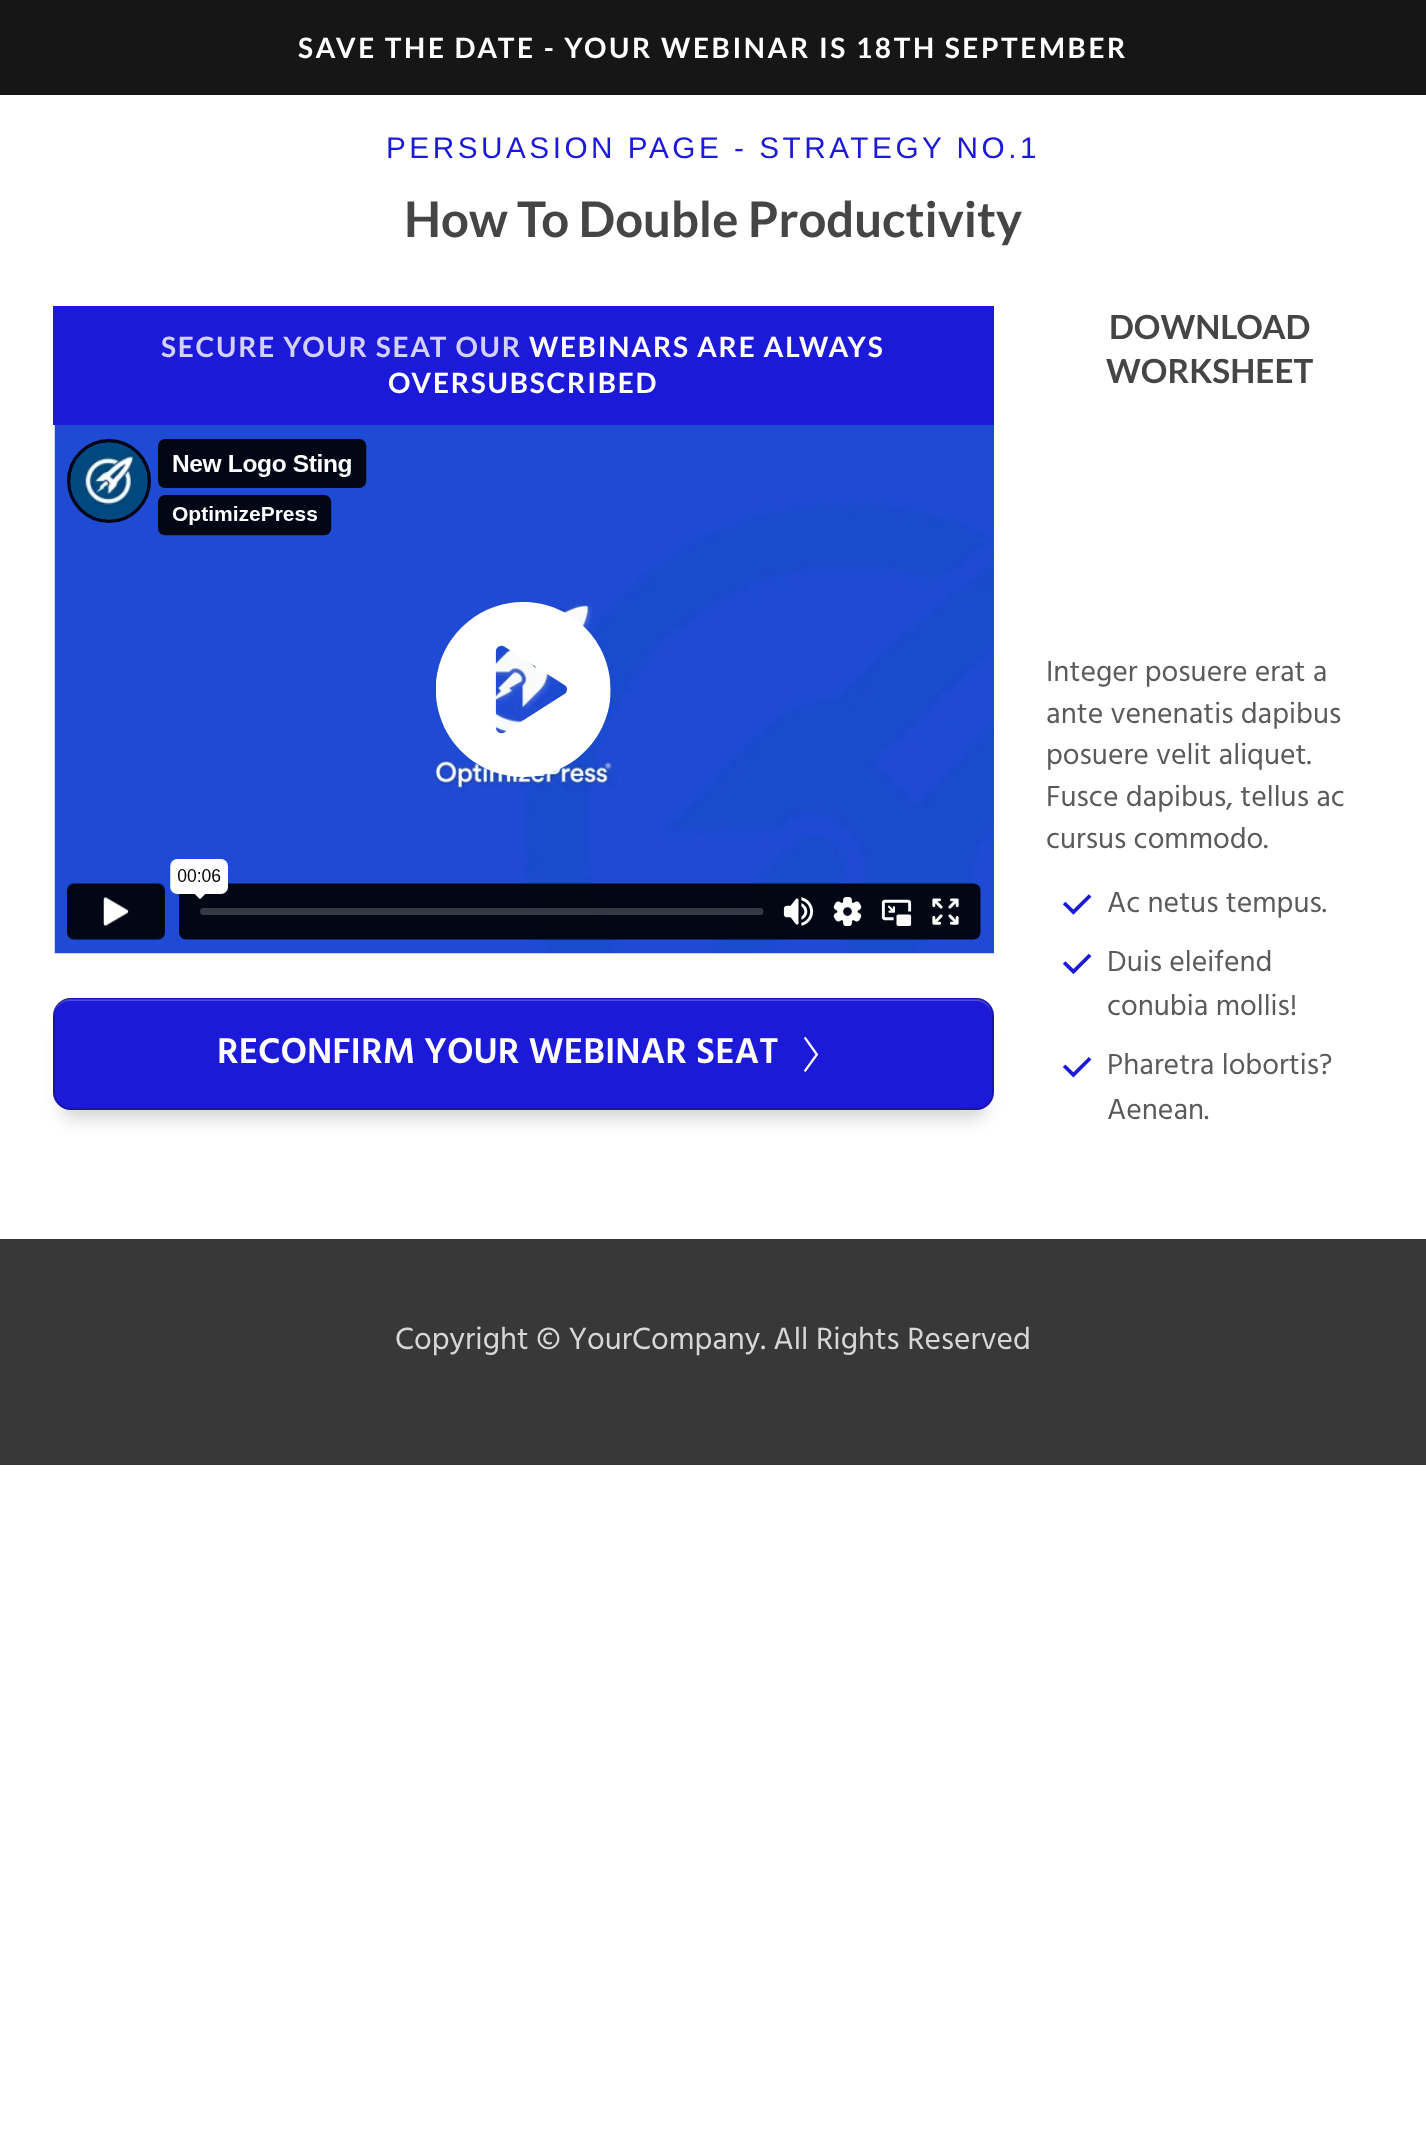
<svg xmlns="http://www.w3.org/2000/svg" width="1426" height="2148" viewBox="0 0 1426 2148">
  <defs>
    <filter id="blur1" x="-50%" y="-200%" width="200%" height="500%"><feGaussianBlur stdDeviation="9"/></filter>
  </defs>
  <rect width="100%" height="100%" fill="#ffffff"/>
  <rect x="0" y="0" width="1426" height="95" fill="#161616"/>
  <text x="298" y="58" font-family="Lato" font-size="28" font-weight="bold" letter-spacing="2.6" fill="#ffffff">SAVE THE DATE - YOUR WEBINAR IS 18TH SEPTEMBER</text>
  <text x="386" y="158" font-family="Liberation Sans" font-size="29.75" letter-spacing="3.5" fill="#1c19d9">PERSUASION PAGE - STRATEGY NO.1</text>
  <text x="404" y="237" font-family="Lato" font-size="49" font-weight="bold" fill="#454545">How To Double Productivity</text>
  <rect x="53" y="306" width="941" height="119" fill="#1c19d9"/>
  <text x="161" y="357" font-family="Lato" font-size="28" font-weight="bold" letter-spacing="1.75" fill="#d2d1f7">SECURE YOUR SEAT OUR</text>
  <text x="529" y="357" font-family="Lato" font-size="28" font-weight="bold" letter-spacing="1.75" fill="#ffffff">WEBINARS ARE ALWAYS</text>
  <text x="388" y="393" font-family="Lato" font-size="28" font-weight="bold" letter-spacing="1.75" fill="#ffffff">OVERSUBSCRIBED</text>
  <image x="54" y="425" width="940" height="529" href="img1.png"/>
  <image x="436" y="602" width="175" height="175" href="img2.png"/>
  <rect x="63" y="1027" width="921" height="91" rx="7" fill="#000000" fill-opacity="0.18" filter="url(#blur1)"/>
  <rect x="53" y="998" width="941" height="112" rx="18" fill="#1c19d9"/>
  <path d="M70 1001C61 1001 54 1008 54 1017C54 1007 60 999 70 999H976C986 999 992 1007 992 1017C992 1008 985 1001 976 1001Z" fill="#4e4ce1"/>
  <image x="803" y="1036" width="16" height="36" href="img3.png"/>
  <rect x="54" y="999" width="939" height="110" rx="17" fill="none" stroke="#000000" stroke-opacity="0.2" stroke-width="2"/>
  <text x="217" y="1063" font-family="Hind" font-size="36.75" font-weight="600" fill="#ffffff">RECONFIRM YOUR WEBINAR SEAT</text>
  <text x="1109" y="339" font-family="Lato" font-size="33.25" font-weight="bold" fill="#454545">DOWNLOAD</text>
  <text x="1106" y="383" font-family="Lato" font-size="33.25" font-weight="bold" fill="#454545">WORKSHEET</text>
  <text x="1046" y="681" font-family="Hind" font-size="29.75" fill="#5a5a5a">Integer posuere erat a</text>
  <text x="1046" y="723" font-family="Hind" font-size="29.75" fill="#5a5a5a">ante venenatis dapibus</text>
  <text x="1046" y="764" font-family="Hind" font-size="29.75" fill="#5a5a5a">posuere velit aliquet.</text>
  <text x="1046" y="806" font-family="Hind" font-size="29.75" fill="#5a5a5a">Fusce dapibus, tellus ac</text>
  <text x="1046" y="848" font-family="Hind" font-size="29.75" fill="#5a5a5a">cursus commodo.</text>
  <image x="1063" y="894" width="29" height="21" href="img4.png"/>
  <text x="1107" y="912" font-family="Hind" font-size="29.75" fill="#5a5a5a">Ac netus tempus.</text>
  <image x="1063" y="953" width="29" height="22" href="img5.png"/>
  <text x="1107" y="971" font-family="Hind" font-size="29.75" fill="#5a5a5a">Duis eleifend</text>
  <text x="1107" y="1015" font-family="Hind" font-size="29.75" fill="#5a5a5a">conubia mollis!</text>
  <image x="1063" y="1057" width="29" height="21" href="img6.png"/>
  <text x="1107" y="1074" font-family="Hind" font-size="29.75" fill="#5a5a5a">Pharetra lobortis?</text>
  <text x="1107" y="1119" font-family="Hind" font-size="29.75" fill="#5a5a5a">Aenean.</text>
  <rect x="0" y="1239" width="1426" height="226" fill="#383838"/>
  <text x="395" y="1349" font-family="Hind" font-size="31.5" fill="#d7d7d7">Copyright © YourCompany. All Rights Reserved</text>
</svg>
